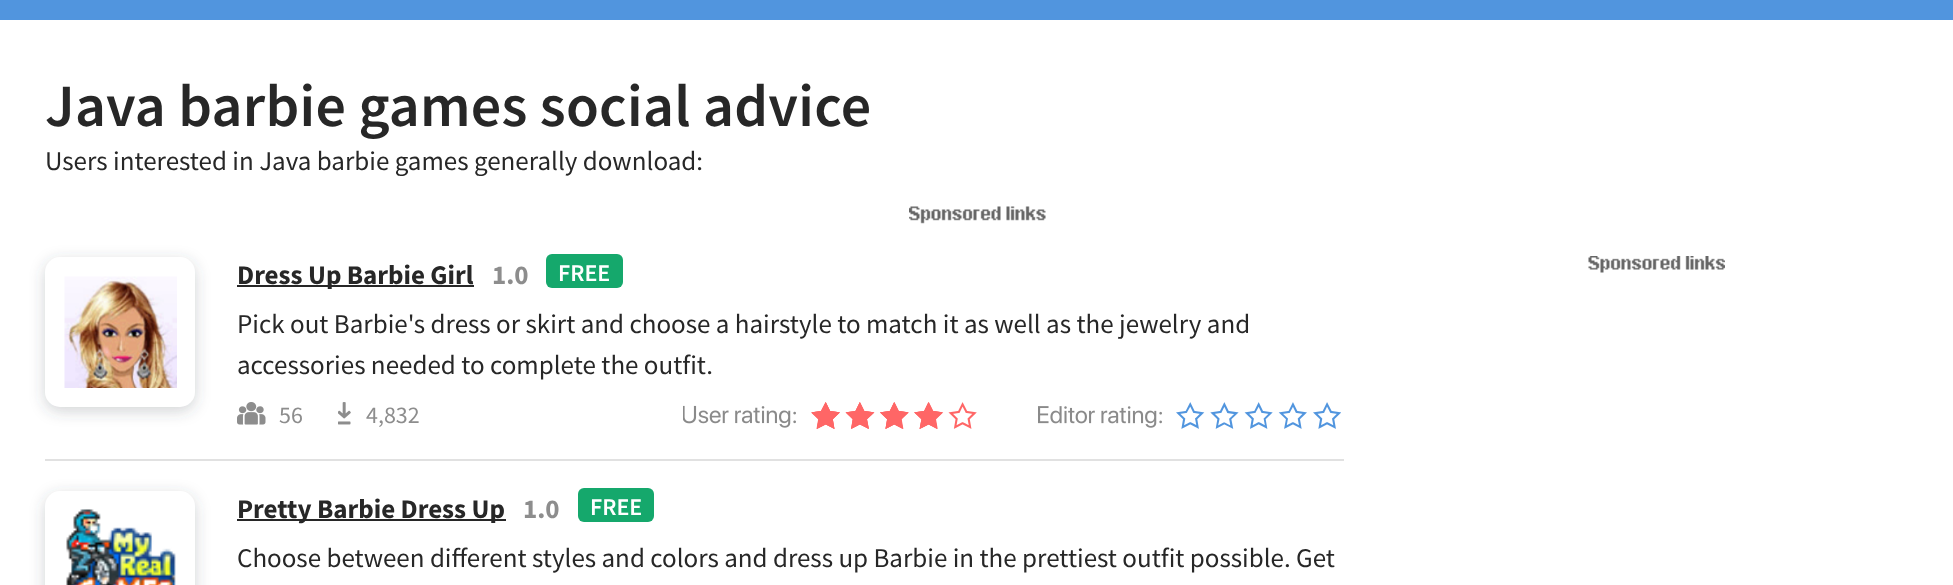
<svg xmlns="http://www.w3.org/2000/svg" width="1953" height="585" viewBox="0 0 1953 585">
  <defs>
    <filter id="blur1" x="-50%" y="-200%" width="200%" height="500%"><feGaussianBlur stdDeviation="7.5"/></filter>
  </defs>
  <rect width="100%" height="100%" fill="#ffffff"/>
  <rect x="0" y="0" width="1953" height="20" fill="#5195de"/>
  <text x="45" y="126" font-family="Source Sans Pro" font-size="60" font-weight="600" letter-spacing="0.25" fill="#272727">Java barbie games social advice</text>
  <text x="45" y="170" font-family="Source Sans Pro" font-size="27" fill="#272727">Users interested in Java barbie games generally download:</text>
  <image x="909" y="206" width="137" height="18" href="img1.png"/>
  <rect x="45" y="459" width="1299" height="2" fill="#e1e1e1"/>
  <rect x="45" y="261" width="150" height="150" rx="15" fill="#3c484e" fill-opacity="0.24" filter="url(#blur1)"/>
  <rect x="45" y="257" width="150" height="150" rx="15" fill="#ffffff"/>
  <image x="64" y="276" width="113" height="112" href="img2.png"/>
  <rect x="237" y="285" width="237" height="2" fill="#272727"/>
  <text x="237" y="284" font-family="Source Sans Pro" font-size="27" font-weight="bold" fill="#272727">Dress Up Barbie Girl</text>
  <text x="492" y="284" font-family="Source Sans Pro" font-size="27" font-weight="bold" fill="#8d8d8d">1.0</text>
  <rect x="546" y="254" width="77" height="34" rx="6" fill="#15a86c"/>
  <text x="558" y="281" font-family="Source Sans Pro" font-size="24" font-weight="600" fill="#ffffff">FREE</text>
  <text x="237" y="333" font-family="Source Sans Pro" font-size="27" fill="#272727">Pick out Barbie's dress or skirt and choose a hairstyle to match it as well as the jewelry and</text>
  <text x="237" y="374" font-family="Source Sans Pro" font-size="27" fill="#272727">accessories needed to complete the outfit.</text>
  <image x="237" y="402" width="29" height="23" href="img3.png"/>
  <text x="279" y="423" font-family="Source Sans Pro" font-size="24" fill="#8d8d8d">56</text>
  <image x="338" y="402" width="13" height="23" href="img4.png"/>
  <text x="366" y="423" font-family="Source Sans Pro" font-size="24" fill="#8d8d8d">4,832</text>
  <image x="683" y="405" width="113" height="23" href="img5.png"/>
  <image x="812" y="402" width="165" height="27" href="img6.png"/>
  <image x="812" y="402" width="131" height="27" href="img7.png"/>
  <image x="811" y="402" width="133" height="27" href="img8.png"/>
  <image x="1038" y="406" width="124" height="22" href="img9.png"/>
  <image x="1176" y="402" width="165" height="27" href="img10.png"/>
  <rect x="45" y="495" width="150" height="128" rx="15" fill="#3c484e" fill-opacity="0.24" filter="url(#blur1)"/>
  <rect x="45" y="491" width="150" height="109" rx="15" fill="#ffffff"/>
  <image x="66" y="509" width="110" height="76" href="img11.png"/>
  <rect x="237" y="519" width="269" height="2" fill="#272727"/>
  <text x="237" y="518" font-family="Source Sans Pro" font-size="27" font-weight="bold" fill="#272727">Pretty Barbie Dress Up</text>
  <text x="523" y="518" font-family="Source Sans Pro" font-size="27" font-weight="bold" fill="#8d8d8d">1.0</text>
  <rect x="578" y="488" width="76" height="34" rx="6" fill="#15a86c"/>
  <text x="590" y="515" font-family="Source Sans Pro" font-size="24" font-weight="600" fill="#ffffff">FREE</text>
  <text x="237" y="567" font-family="Source Sans Pro" font-size="27" fill="#272727">Choose between different styles and colors and dress up Barbie in the prettiest outfit possible. Get</text>
  <image x="1588" y="256" width="137" height="17" href="img12.png"/>
</svg>
